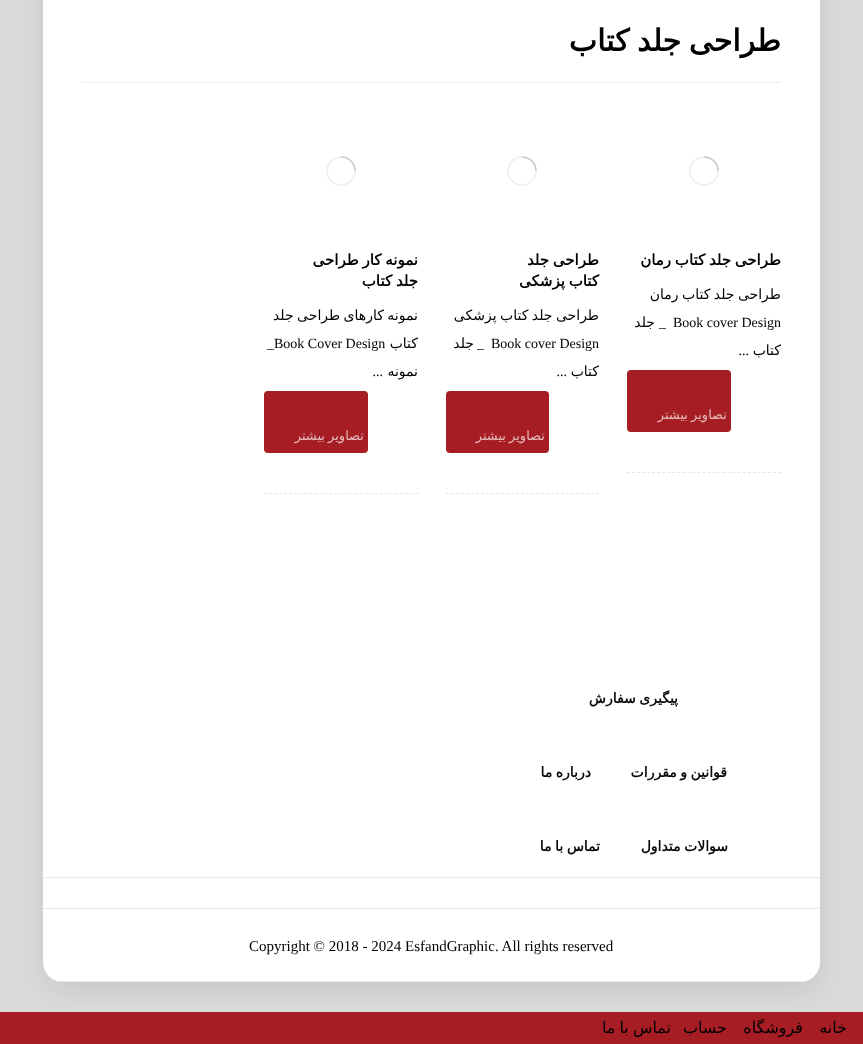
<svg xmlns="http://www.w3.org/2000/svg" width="863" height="1044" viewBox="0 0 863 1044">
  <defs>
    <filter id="blur1" x="-50%" y="-200%" width="200%" height="500%"><feGaussianBlur stdDeviation="16"/></filter>
    <clipPath id="clip1"><rect x="43" y="-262" width="777" height="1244" rx="20"/></clipPath>
  </defs>
  <rect width="100%" height="100%" fill="#dbdbdb"/>
  <rect x="0" y="1012" width="863" height="32" fill="#a61e23"/>
  <rect x="44" y="-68" width="777" height="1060" rx="20" fill="#000000" fill-opacity="0.09" filter="url(#blur1)"/>
  <rect x="43" y="-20" width="777" height="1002" rx="20" fill="#ffffff"/>
  <rect x="82" y="82" width="699" height="1" fill="#ededed"/>
  <text x="781" y="51" word-spacing="-2" font-family="DejaVu Sans" font-size="30" font-weight="bold" direction="rtl" fill="#000000">طراحی جلد کتاب</text>
  <path d="M627 472.5H781" fill="none" stroke="#e5e5e5" stroke-dasharray="3 2.03"/>
  <circle cx="704" cy="171" r="14" fill="none" stroke="#efefef" stroke-width="1.6"/>
  <path d="M718 171C718 163 712 157 704 157" fill="none" stroke="#cacaca" stroke-width="1.6"/>
  <text x="781" y="265" word-spacing="-1" font-family="DejaVu Sans" font-size="15" font-weight="bold" direction="rtl" fill="#000000">طراحی جلد کتاب رمان</text>
  <text x="781" y="299" word-spacing="-1" font-family="DejaVu Sans" font-size="14" direction="rtl" fill="#000000">طراحی جلد کتاب رمان</text>
  <text x="673" y="327" font-family="Liberation Serif" font-size="14" fill="#000000">Book cover Design</text>
  <text x="666" y="327" font-family="Liberation Serif" font-size="14" direction="rtl" fill="#000000">_</text>
  <text x="655" y="327" font-family="DejaVu Sans" font-size="14" direction="rtl" fill="#000000">جلد</text>
  <text x="781" y="355" font-family="DejaVu Sans" font-size="14" direction="rtl" fill="#000000">کتاب</text>
  <text x="749" y="355" font-family="Liberation Serif" font-size="14" direction="rtl" fill="#000000">...</text>
  <rect x="627" y="370" width="104" height="62" rx="4" fill="#a61e23"/>
  <text x="727" y="419" word-spacing="-1" font-family="DejaVu Sans" font-size="13" direction="rtl" fill="#e4bcbd">تصاویر بیشتر</text>
  <path d="M446 493.5H599" fill="none" stroke="#e5e5e5" stroke-dasharray="3 2"/>
  <circle cx="522" cy="171" r="14" fill="none" stroke="#efefef" stroke-width="1.6"/>
  <path d="M536 171C536 163 530 157 522 157" fill="none" stroke="#cacaca" stroke-width="1.6"/>
  <text x="599" y="265" word-spacing="-1" font-family="DejaVu Sans" font-size="15" font-weight="bold" direction="rtl" fill="#000000">طراحی جلد</text>
  <text x="599" y="286" word-spacing="-1" font-family="DejaVu Sans" font-size="15" font-weight="bold" direction="rtl" fill="#000000">کتاب پزشکی</text>
  <text x="599" y="320" word-spacing="-1" font-family="DejaVu Sans" font-size="14" direction="rtl" fill="#000000">طراحی جلد کتاب پزشکی</text>
  <text x="491" y="348" font-family="Liberation Serif" font-size="14" fill="#000000">Book cover Design</text>
  <text x="484" y="348" font-family="Liberation Serif" font-size="14" direction="rtl" fill="#000000">_</text>
  <text x="474" y="348" font-family="DejaVu Sans" font-size="14" direction="rtl" fill="#000000">جلد</text>
  <text x="599" y="376" font-family="DejaVu Sans" font-size="14" direction="rtl" fill="#000000">کتاب</text>
  <text x="567" y="376" font-family="Liberation Serif" font-size="14" direction="rtl" fill="#000000">...</text>
  <rect x="446" y="391" width="103" height="62" rx="4" fill="#a61e23"/>
  <text x="545" y="440" word-spacing="-1" font-family="DejaVu Sans" font-size="13" direction="rtl" fill="#e4bcbd">تصاویر بیشتر</text>
  <path d="M264 493.5H418" fill="none" stroke="#e5e5e5" stroke-dasharray="3 2.03"/>
  <circle cx="341" cy="171" r="14" fill="none" stroke="#efefef" stroke-width="1.6"/>
  <path d="M355 171C355 163 349 157 341 157" fill="none" stroke="#cacaca" stroke-width="1.6"/>
  <text x="418" y="265" word-spacing="-1" font-family="DejaVu Sans" font-size="15" font-weight="bold" direction="rtl" fill="#000000">نمونه کار طراحی</text>
  <text x="418" y="286" word-spacing="-1" font-family="DejaVu Sans" font-size="15" font-weight="bold" direction="rtl" fill="#000000">جلد کتاب</text>
  <text x="418" y="320" word-spacing="-1" font-family="DejaVu Sans" font-size="14" direction="rtl" fill="#000000">نمونه کارهای طراحی جلد</text>
  <text x="418" y="348" font-family="DejaVu Sans" font-size="14" direction="rtl" fill="#000000">کتاب</text>
  <text x="267" y="348" font-family="Liberation Serif" font-size="14" fill="#000000">_Book Cover Design</text>
  <text x="418" y="376" font-family="DejaVu Sans" font-size="14" direction="rtl" fill="#000000">نمونه</text>
  <text x="383" y="376" font-family="Liberation Serif" font-size="14" direction="rtl" fill="#000000">...</text>
  <rect x="264" y="391" width="104" height="62" rx="4" fill="#a61e23"/>
  <text x="364" y="440" word-spacing="-1" font-family="DejaVu Sans" font-size="13" direction="rtl" fill="#e4bcbd">تصاویر بیشتر</text>
  <text x="678" y="703" word-spacing="-1" font-family="DejaVu Sans" font-size="14" font-weight="bold" direction="rtl" fill="#0a0a0a">پیگیری سفارش</text>
  <text x="727" y="777" word-spacing="-1" font-family="DejaVu Sans" font-size="14" font-weight="bold" direction="rtl" fill="#0a0a0a">قوانین و مقررات</text>
  <text x="591" y="777" word-spacing="-1" font-family="DejaVu Sans" font-size="14" font-weight="bold" direction="rtl" fill="#0a0a0a">درباره ما</text>
  <text x="728" y="851" word-spacing="-1" font-family="DejaVu Sans" font-size="14" font-weight="bold" direction="rtl" fill="#0a0a0a">سوالات متداول</text>
  <text x="600" y="851" word-spacing="-1" font-family="DejaVu Sans" font-size="14" font-weight="bold" direction="rtl" fill="#0a0a0a">تماس با ما</text>
  <rect x="43" y="877" width="777" height="1" fill="#eaeaea"/>
  <rect x="43" y="908" width="777" height="1" fill="#eaeaea"/>
  <g clip-path="url(#clip1)">
    <rect x="57" y="981" width="749" height="1" fill="#eaeaea"/>
  </g>
  <text x="249" y="951" font-family="Liberation Serif" font-size="15" fill="#000000">Copyright © 2018 - 2024 EsfandGraphic. All rights reserved</text>
  <text x="847" y="1033" font-family="DejaVu Sans" font-size="16" direction="rtl" fill="#000000">خانه</text>
  <text x="803" y="1033" font-family="DejaVu Sans" font-size="16" direction="rtl" fill="#000000">فروشگاه</text>
  <text x="727" y="1033" font-family="DejaVu Sans" font-size="16" direction="rtl" fill="#000000">حساب</text>
  <text x="671" y="1033" word-spacing="-1" font-family="DejaVu Sans" font-size="16" direction="rtl" fill="#000000">تماس با ما</text>
</svg>
